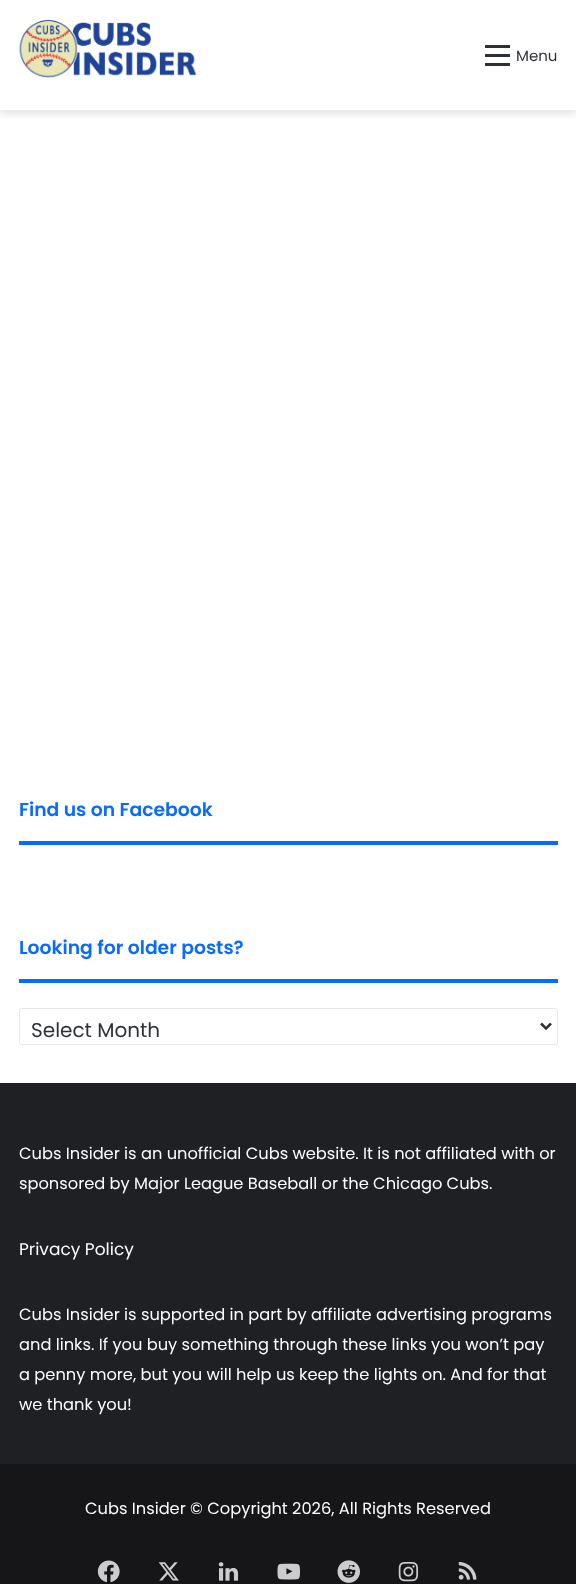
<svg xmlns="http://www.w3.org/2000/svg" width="576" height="1584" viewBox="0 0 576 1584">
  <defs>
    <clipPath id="clip1"><rect x="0" y="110" width="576" height="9"/></clipPath>
    <filter id="blur1" x="-50%" y="-200%" width="200%" height="500%"><feGaussianBlur stdDeviation="5"/></filter>
  </defs>
  <rect width="100%" height="100%" fill="#ffffff"/>
  <g clip-path="url(#clip1)">
    <rect x="0" y="3" width="576" height="110" fill="#636363" fill-opacity="0.2" filter="url(#blur1)"/>
  </g>
  <image x="19" y="19" width="178" height="59" href="img1.png"/>
  <rect x="485" y="54" width="25" height="3" fill="#2c2f34"/>
  <rect x="485" y="45" width="25" height="3" fill="#2c2f34"/>
  <rect x="485" y="63" width="25" height="3" fill="#2c2f34"/>
  <text x="516" y="61" font-family="Poppins" font-size="15" fill="#2e3136">Menu</text>
  <rect x="19" y="841" width="539" height="4" fill="#086bff"/>
  <text x="19" y="816" font-family="Poppins" font-size="18.75" font-weight="600" fill="#086bff">Find us on Facebook</text>
  <rect x="19" y="979" width="539" height="4" fill="#086bff"/>
  <text x="19" y="954" font-family="Poppins" font-size="18.75" font-weight="600" fill="#086bff">Looking for older posts?</text>
  <rect x="19.5" y="1008.5" width="538" height="36" rx="2" fill="none" stroke="#e6e6e6"/>
  <path d="M541 1023.5L546 1028.5L551 1023.5" fill="none" stroke="#2e3136" stroke-width="2.5"/>
  <text x="31" y="1037" font-family="Poppins" font-size="20" fill="#2e3136">Select Month</text>
  <rect x="0" y="1083" width="576" height="381" fill="#1f2024"/>
  <text x="19" y="1159" font-family="Poppins" font-size="16.25" fill="#fdfdfd">Cubs Insider is an unofficial Cubs website. It is not affiliated with or</text>
  <text x="19" y="1189" font-family="Poppins" font-size="16.25" fill="#fdfdfd">sponsored by Major League Baseball or the Chicago Cubs.</text>
  <text x="19" y="1255" font-family="Poppins" font-size="17" fill="#fdfdfd">Privacy Policy</text>
  <text x="19" y="1320" font-family="Poppins" font-size="16.25" fill="#fdfdfd">Cubs Insider is supported in part by affiliate advertising programs</text>
  <text x="19" y="1350" font-family="Poppins" font-size="16.25" fill="#fdfdfd">and links. If you buy something through these links you won’t pay</text>
  <text x="19" y="1380" font-family="Poppins" font-size="16.25" fill="#fdfdfd">a penny more, but you will help us keep the lights on. And for that</text>
  <text x="19" y="1410" font-family="Poppins" font-size="16.25" fill="#fdfdfd">we thank you!</text>
  <rect x="0" y="1464" width="576" height="120" fill="#161619"/>
  <text x="85" y="1514" font-family="Poppins" font-size="16.25" fill="#fdfdfd">Cubs Insider © Copyright 2026, All Rights Reserved</text>
  <image x="97" y="1560" width="23" height="23" href="img2.png"/>
  <image x="158" y="1562" width="21" height="19" href="img3.png"/>
  <image x="218" y="1562" width="21" height="19" href="img4.png"/>
  <image x="277" y="1563" width="23" height="17" href="img5.png"/>
  <image x="337" y="1560" width="23" height="23" href="img6.png"/>
  <image x="398" y="1561" width="21" height="21" href="img7.png"/>
  <image x="458" y="1562" width="19" height="18" href="img8.png"/>
</svg>
